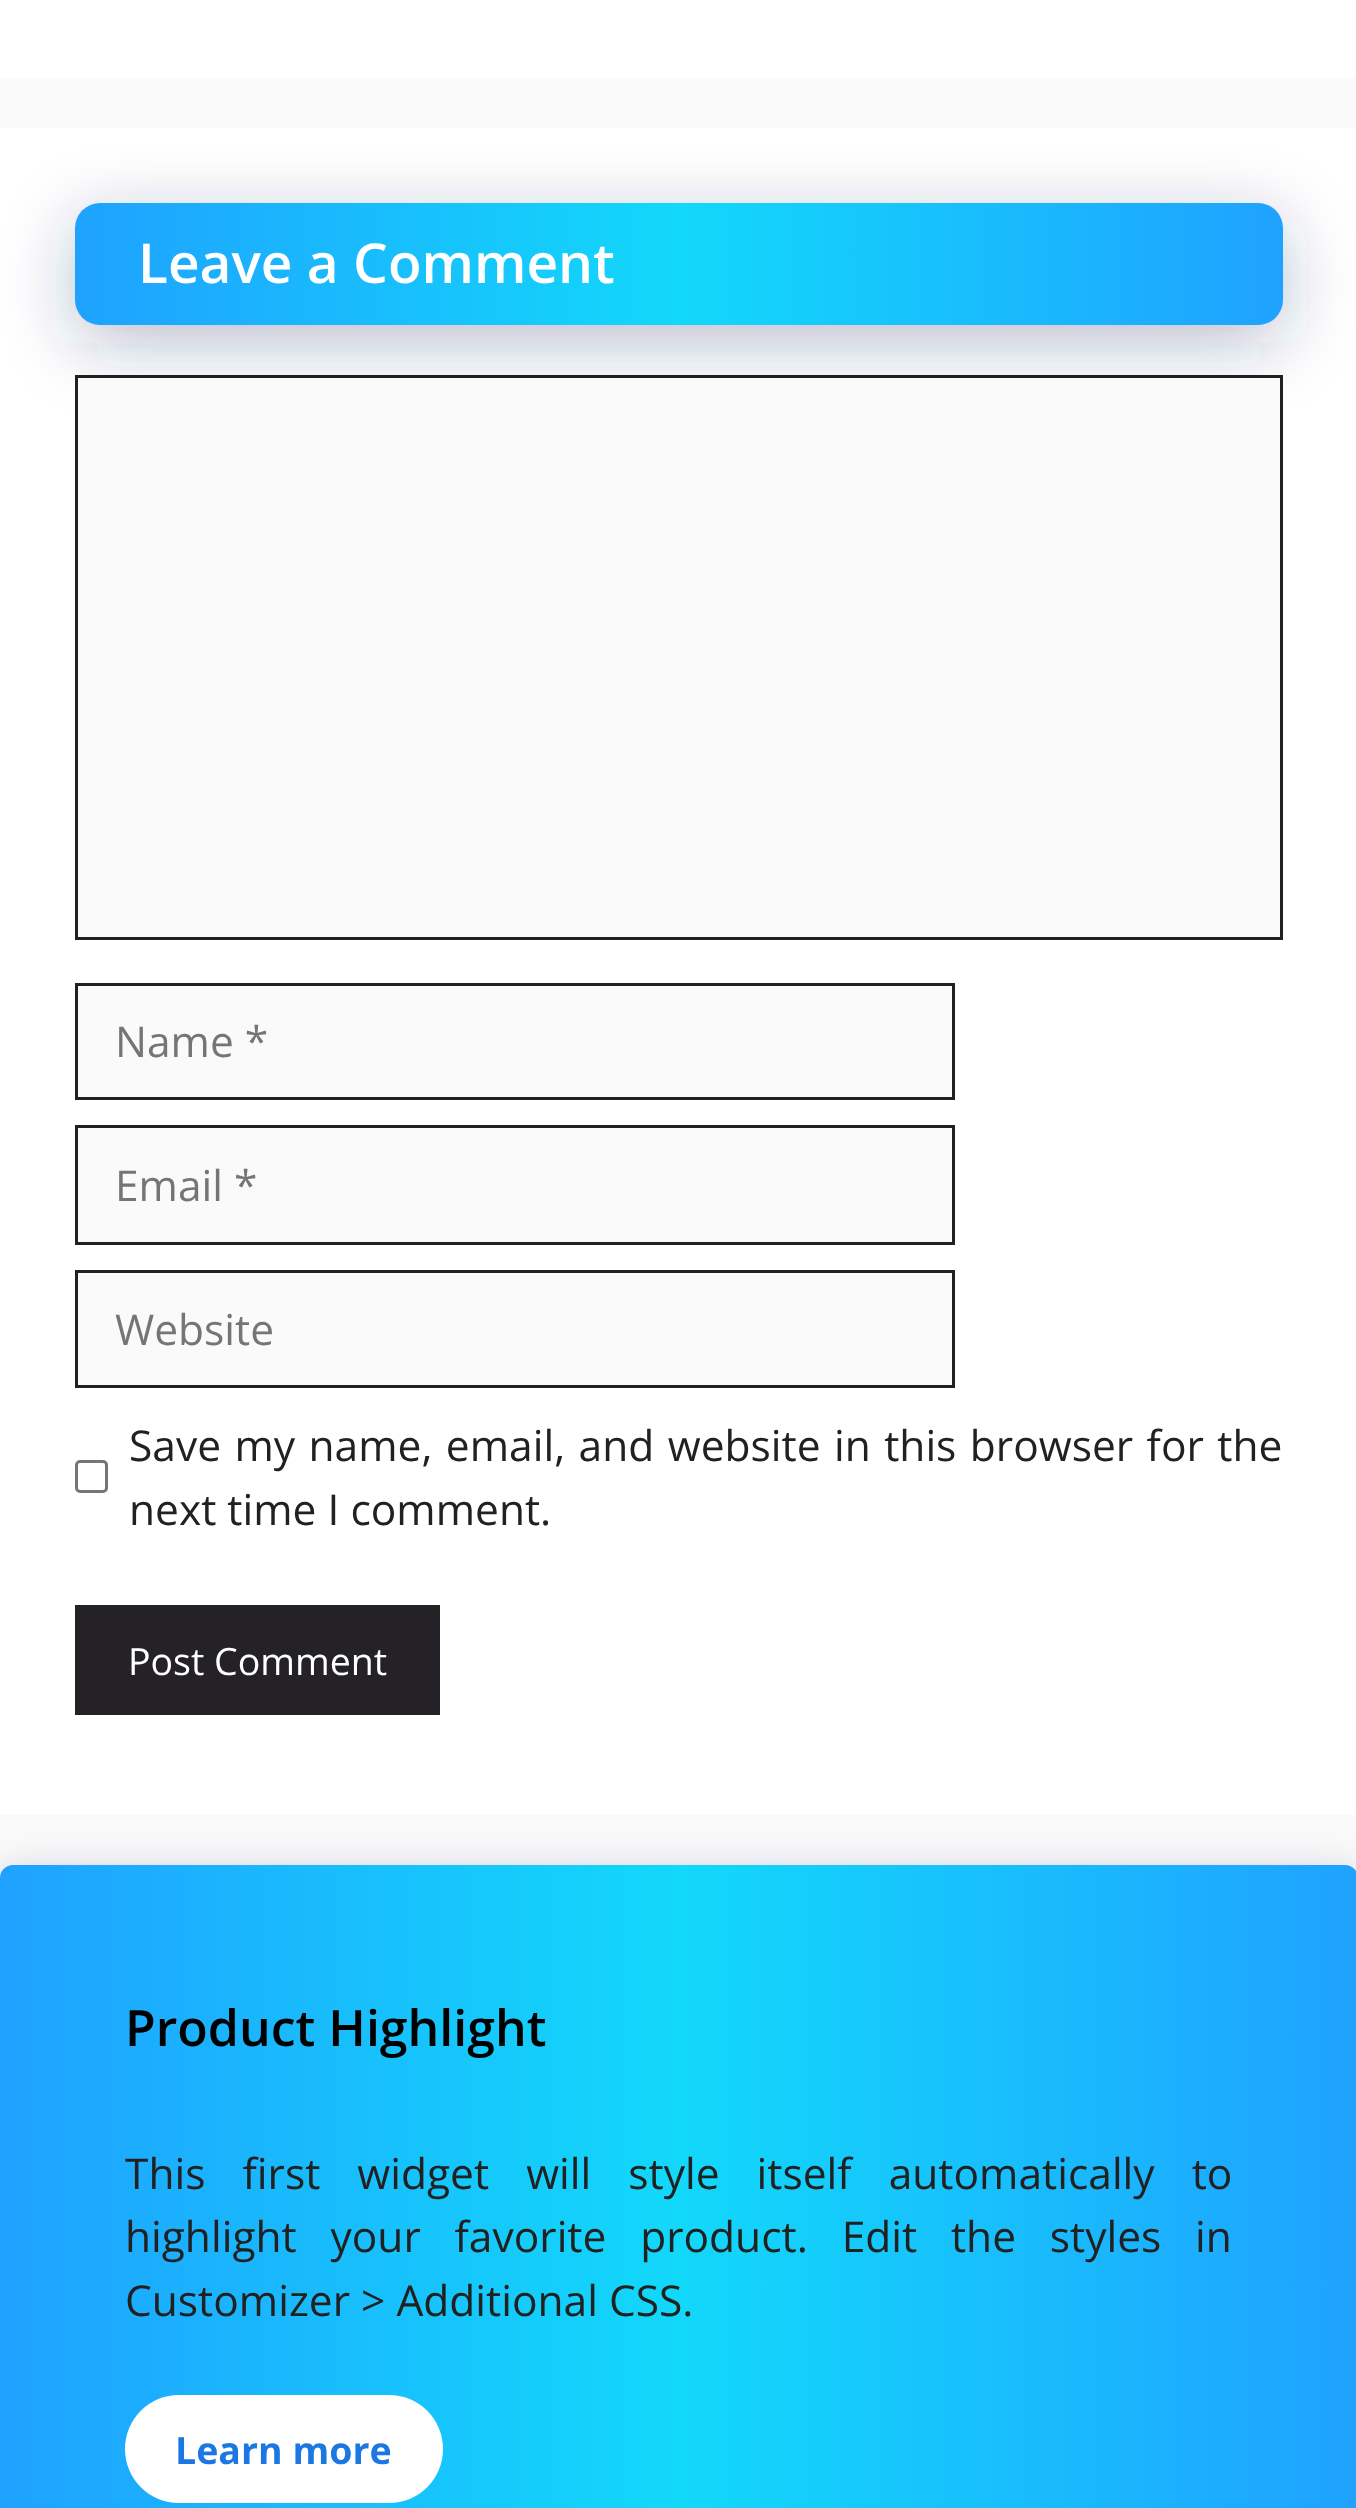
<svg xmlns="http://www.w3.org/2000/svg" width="1356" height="2508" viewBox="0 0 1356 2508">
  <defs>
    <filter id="blur1" x="-50%" y="-200%" width="200%" height="500%"><feGaussianBlur stdDeviation="35"/></filter>
    <linearGradient id="g1" gradientUnits="userSpaceOnUse" x1="75" y1="264" x2="1283" y2="264"><stop offset="0" stop-color="#1fa2ff"/><stop offset="0.5" stop-color="#12d8fa"/><stop offset="1" stop-color="#1fa2ff"/></linearGradient>
    <filter id="blur2" x="-50%" y="-200%" width="200%" height="500%"><feGaussianBlur stdDeviation="22.5"/></filter>
    <linearGradient id="g2" gradientUnits="userSpaceOnUse" x1="0" y1="2246" x2="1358" y2="2246"><stop offset="0" stop-color="#1fa2ff"/><stop offset="0.5" stop-color="#12d8fa"/><stop offset="1" stop-color="#1fa2ff"/></linearGradient>
  </defs>
  <rect width="100%" height="100%" fill="#fafafa"/>
  <rect x="0" y="0" width="1356" height="78" fill="#ffffff"/>
  <rect x="0" y="128" width="1356" height="1687" fill="#ffffff"/>
  <rect x="75" y="220" width="1208" height="123" rx="25" fill="#172b63" fill-opacity="0.3" filter="url(#blur1)"/>
  <rect x="75" y="203" width="1208" height="122" rx="25" fill="url(#g1)"/>
  <text x="138" y="283" font-family="Open Sans" font-size="55" font-weight="600" fill="#ffffff">Leave a Comment</text>
  <rect x="76.5" y="376.5" width="1205" height="562" fill="#fafafa" stroke="#212121" stroke-width="3"/>
  <rect x="76.5" y="984.5" width="877" height="114" fill="#fafafa" stroke="#212121" stroke-width="3"/>
  <text x="115" y="1057" font-family="Open Sans" font-size="42.5" fill="#757575">Name *</text>
  <rect x="76.5" y="1126.5" width="877" height="117" fill="#fafafa" stroke="#212121" stroke-width="3"/>
  <text x="115" y="1201" font-family="Open Sans" font-size="42.5" fill="#757575">Email *</text>
  <rect x="76.5" y="1271.5" width="877" height="115" fill="#fafafa" stroke="#212121" stroke-width="3"/>
  <text x="115" y="1345" font-family="Open Sans" font-size="42.5" fill="#757575">Website</text>
  <rect x="76.5" y="1461.5" width="30" height="30" rx="3.5" fill="none" stroke="#767676" stroke-width="3"/>
  <text x="129" y="1461" word-spacing="2.4" font-family="Open Sans" font-size="42.5" fill="#212121">Save my name, email, and website in this browser for the</text>
  <text x="129" y="1525" font-family="Open Sans" font-size="42.5" fill="#212121">next time I comment.</text>
  <rect x="75" y="1605" width="365" height="110" fill="#242226"/>
  <text x="128" y="1675" font-family="Open Sans" font-size="37.5" fill="#ffffff">Post Comment</text>
  <rect x="0" y="1880" width="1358" height="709" rx="13" fill="#172b63" fill-opacity="0.3" filter="url(#blur2)"/>
  <rect x="0" y="1865" width="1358" height="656" rx="13" fill="url(#g2)"/>
  <text x="125" y="2046" font-family="Open Sans" font-size="50" font-weight="600" fill="#000000">Product Highlight</text>
  <text x="125" y="2189" word-spacing="26" font-family="Open Sans" font-size="42.5" fill="#212121">This first widget will style itself automatically to</text>
  <text x="125" y="2252" word-spacing="22.75" font-family="Open Sans" font-size="42.5" fill="#212121">highlight your favorite product. Edit the styles in</text>
  <text x="125" y="2316" font-family="Open Sans" font-size="42.5" fill="#212121">Customizer &gt; Additional CSS.</text>
  <rect x="125" y="2395" width="318" height="108" rx="54" fill="#ffffff"/>
  <text x="175" y="2464" font-family="Open Sans" font-size="37.5" font-weight="bold" fill="#1b78e2">Learn more</text>
</svg>
